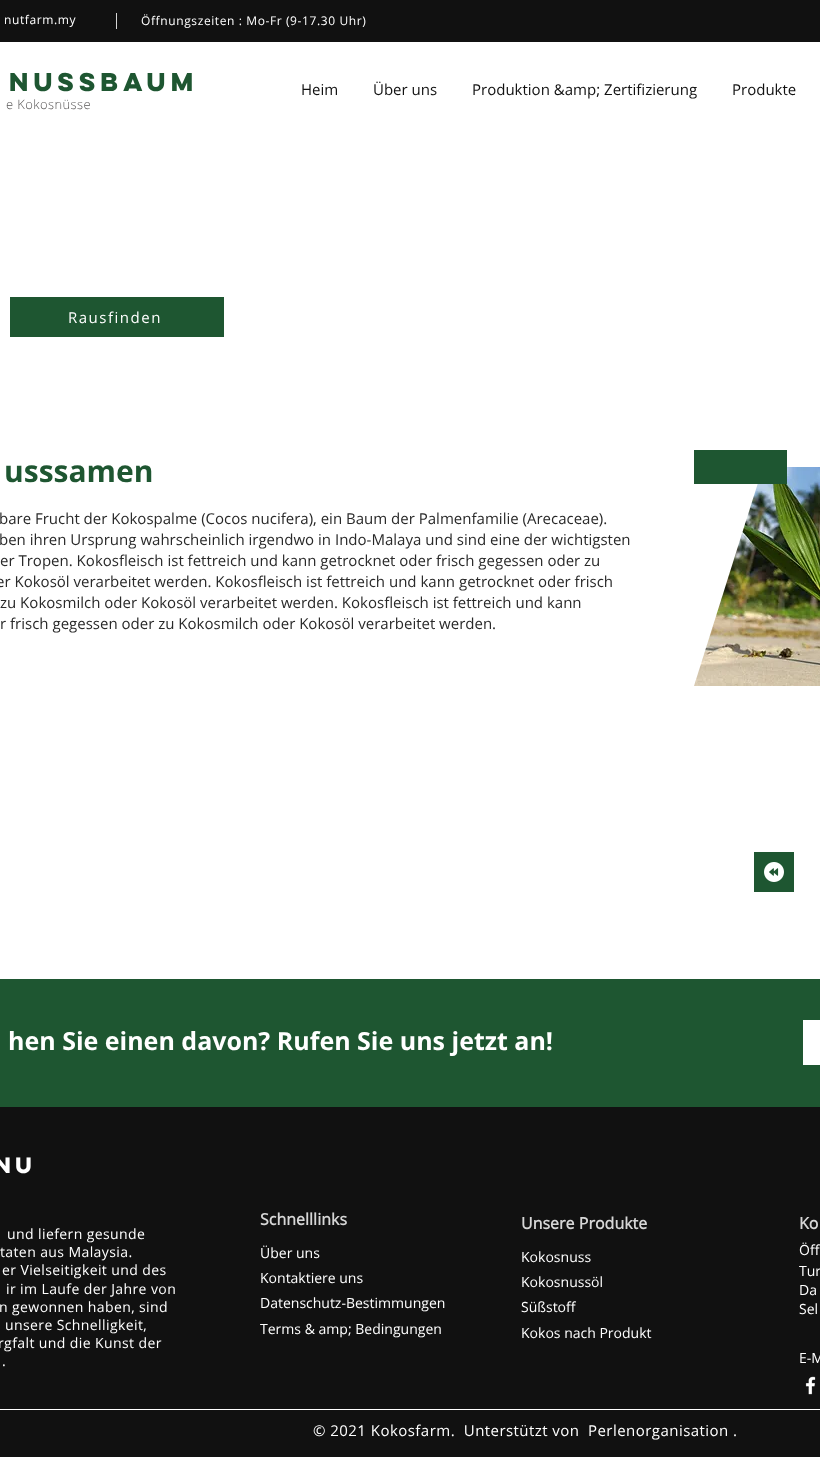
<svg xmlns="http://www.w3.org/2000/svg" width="820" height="1457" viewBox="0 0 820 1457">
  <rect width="100%" height="100%" fill="#ffffff"/>
  <rect x="0" y="0" width="820" height="42" fill="#111111"/>
  <text x="4" y="24" font-family="'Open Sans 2'" font-size="12" letter-spacing="0.6" fill="#ffffff">nutfarm.my</text>
  <rect x="116" y="13" width="1" height="16" fill="#d6d6d6"/>
  <text x="141" y="25" font-family="'Open Sans 2'" font-size="12" letter-spacing="0.6" fill="#ffffff">Öffnungszeiten : Mo-Fr (9-17.30 Uhr)</text>
  <text x="9" y="91" font-family="'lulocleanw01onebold'" font-size="23" font-weight="bold" fill="#1e5631">NUSSBAUM</text>
  <text x="6" y="109" font-family="Open Sans" font-size="13" font-weight="300" letter-spacing="0.4" fill="#595757">e Kokosnüsse</text>
  <text x="301" y="95" font-family="Open Sans" font-size="15" fill="#111111">Heim</text>
  <text x="373" y="95" font-family="Open Sans" font-size="15" fill="#111111">Über uns</text>
  <text x="472" y="95" font-family="Open Sans" font-size="15" fill="#111111">Produktion &amp;amp; Zertifizierung</text>
  <text x="732" y="95" font-family="Open Sans" font-size="15" fill="#111111">Produkte</text>
  <rect x="10" y="297" width="214" height="40" fill="#1e5631"/>
  <text x="68" y="323" font-family="Open Sans" font-size="15" letter-spacing="1.5" fill="#ffffff">Rausfinden</text>
  <text x="4" y="482" font-family="Open Sans" font-size="30" font-weight="bold" fill="#1e5631">usssamen</text>
  <text x="-1" y="524" font-family="Open Sans" font-size="15" fill="#292929">bare Frucht der Kokospalme (Cocos nucifera), ein Baum der Palmenfamilie (Arecaceae).</text>
  <text x="-1" y="545" font-family="Open Sans" font-size="15" fill="#292929">ben ihren Ursprung wahrscheinlich irgendwo in Indo-Malaya und sind eine der wichtigsten</text>
  <text x="0" y="566" font-family="Open Sans" font-size="15" fill="#292929">er Tropen. Kokosfleisch ist fettreich und kann getrocknet oder frisch gegessen oder zu</text>
  <text x="-4" y="587" font-family="Open Sans" font-size="15" fill="#292929">er Kokosöl verarbeitet werden. Kokosfleisch ist fettreich und kann getrocknet oder frisch</text>
  <text x="0" y="608" font-family="Open Sans" font-size="15" fill="#292929">zu Kokosmilch oder Kokosöl verarbeitet werden. Kokosfleisch ist fettreich und kann</text>
  <text x="0" y="629" font-family="Open Sans" font-size="15" fill="#292929">r frisch gegessen oder zu Kokosmilch oder Kokosöl verarbeitet werden.</text>
  <rect x="754" y="852" width="40" height="40" fill="#1e5631"/>
  <image x="764" y="862" width="20" height="20" href="img1.png"/>
  <image x="694" y="467" width="126" height="219" href="img2.png"/>
  <rect x="694" y="450" width="93" height="34" fill="#1e5631"/>
  <rect x="0" y="979" width="820" height="128" fill="#1e5631"/>
  <text x="8" y="1050" font-family="Open Sans" font-size="25" font-weight="bold" fill="#ffffff">hen Sie einen davon? Rufen Sie uns jetzt an!</text>
  <rect x="803" y="1020" width="17" height="45" fill="#ffffff"/>
  <rect x="0" y="1107" width="820" height="350" fill="#111111"/>
  <text x="-6" y="1173" font-family="'lulocleanw01onebold'" font-size="20" font-weight="bold" fill="#ffffff">NU</text>
  <text x="260" y="1225" font-family="'Open Sans 2'" font-size="16" font-weight="bold" fill="#d6d6d6">Schnelllinks</text>
  <text x="521" y="1229" font-family="'Open Sans 2'" font-size="16" font-weight="bold" fill="#d6d6d6">Unsere Produkte</text>
  <text x="799" y="1229" font-family="'Open Sans 2'" font-size="16" font-weight="bold" fill="#d6d6d6">Ko</text>
  <text x="7" y="1239" font-family="Open Sans" font-size="14" letter-spacing="0.4" fill="#ffffff">und liefern gesunde</text>
  <text x="0" y="1257" font-family="Open Sans" font-size="14" letter-spacing="0.4" fill="#ffffff">taten aus Malaysia.</text>
  <text x="2" y="1275" font-family="Open Sans" font-size="14" letter-spacing="0.4" fill="#ffffff">er Vielseitigkeit und des</text>
  <text x="6" y="1294" font-family="Open Sans" font-size="14" letter-spacing="0.4" fill="#ffffff">ir im Laufe der Jahre von</text>
  <text x="-1" y="1312" font-family="Open Sans" font-size="14" letter-spacing="0.4" fill="#ffffff">n gewonnen haben, sind</text>
  <text x="5" y="1330" font-family="Open Sans" font-size="14" letter-spacing="0.4" fill="#ffffff">unsere Schnelligkeit,</text>
  <text x="-2" y="1348" font-family="Open Sans" font-size="14" letter-spacing="0.4" fill="#ffffff">rgfalt und die Kunst der</text>
  <text x="2" y="1366" font-family="Open Sans" font-size="14" letter-spacing="0.4" fill="#ffffff">.</text>
  <text x="260" y="1258" font-family="Open Sans" font-size="14" fill="#ffffff">Über uns</text>
  <text x="260" y="1283" font-family="Open Sans" font-size="14" fill="#ffffff">Kontaktiere uns</text>
  <text x="260" y="1308" font-family="Open Sans" font-size="14" fill="#ffffff">Datenschutz-Bestimmungen</text>
  <text x="260" y="1334" font-family="Open Sans" font-size="14" fill="#ffffff">Terms &amp; amp; Bedingungen</text>
  <text x="521" y="1262" font-family="Open Sans" font-size="14" fill="#ffffff">Kokosnuss</text>
  <text x="521" y="1287" font-family="Open Sans" font-size="14" fill="#ffffff">Kokosnussöl</text>
  <text x="521" y="1312" font-family="Open Sans" font-size="14" fill="#ffffff">Süßstoff</text>
  <text x="521" y="1338" font-family="Open Sans" font-size="14" fill="#ffffff">Kokos nach Produkt</text>
  <text x="799" y="1255" font-family="Open Sans" font-size="14" fill="#ffffff">Öff</text>
  <text x="799" y="1276" font-family="Open Sans" font-size="14" fill="#ffffff">Tur</text>
  <text x="799" y="1295" font-family="Open Sans" font-size="14" fill="#ffffff">Da</text>
  <text x="799" y="1314" font-family="Open Sans" font-size="14" fill="#ffffff">Sel</text>
  <text x="799" y="1363" font-family="Open Sans" font-size="14" fill="#ffffff">E-M</text>
  <image x="805" y="1376" width="11" height="19" href="img3.png"/>
  <rect x="0" y="1409" width="820" height="1" fill="#ffffff"/>
  <text x="313" y="1436" font-family="Open Sans" font-size="15" letter-spacing="0.45" fill="#ffffff" xml:space="preserve">© 2021 Kokosfarm.  Unterstützt von</text>
  <text x="588" y="1436" font-family="Open Sans" font-size="15" letter-spacing="0.45" fill="#ffffff">Perlenorganisation .</text>
</svg>
